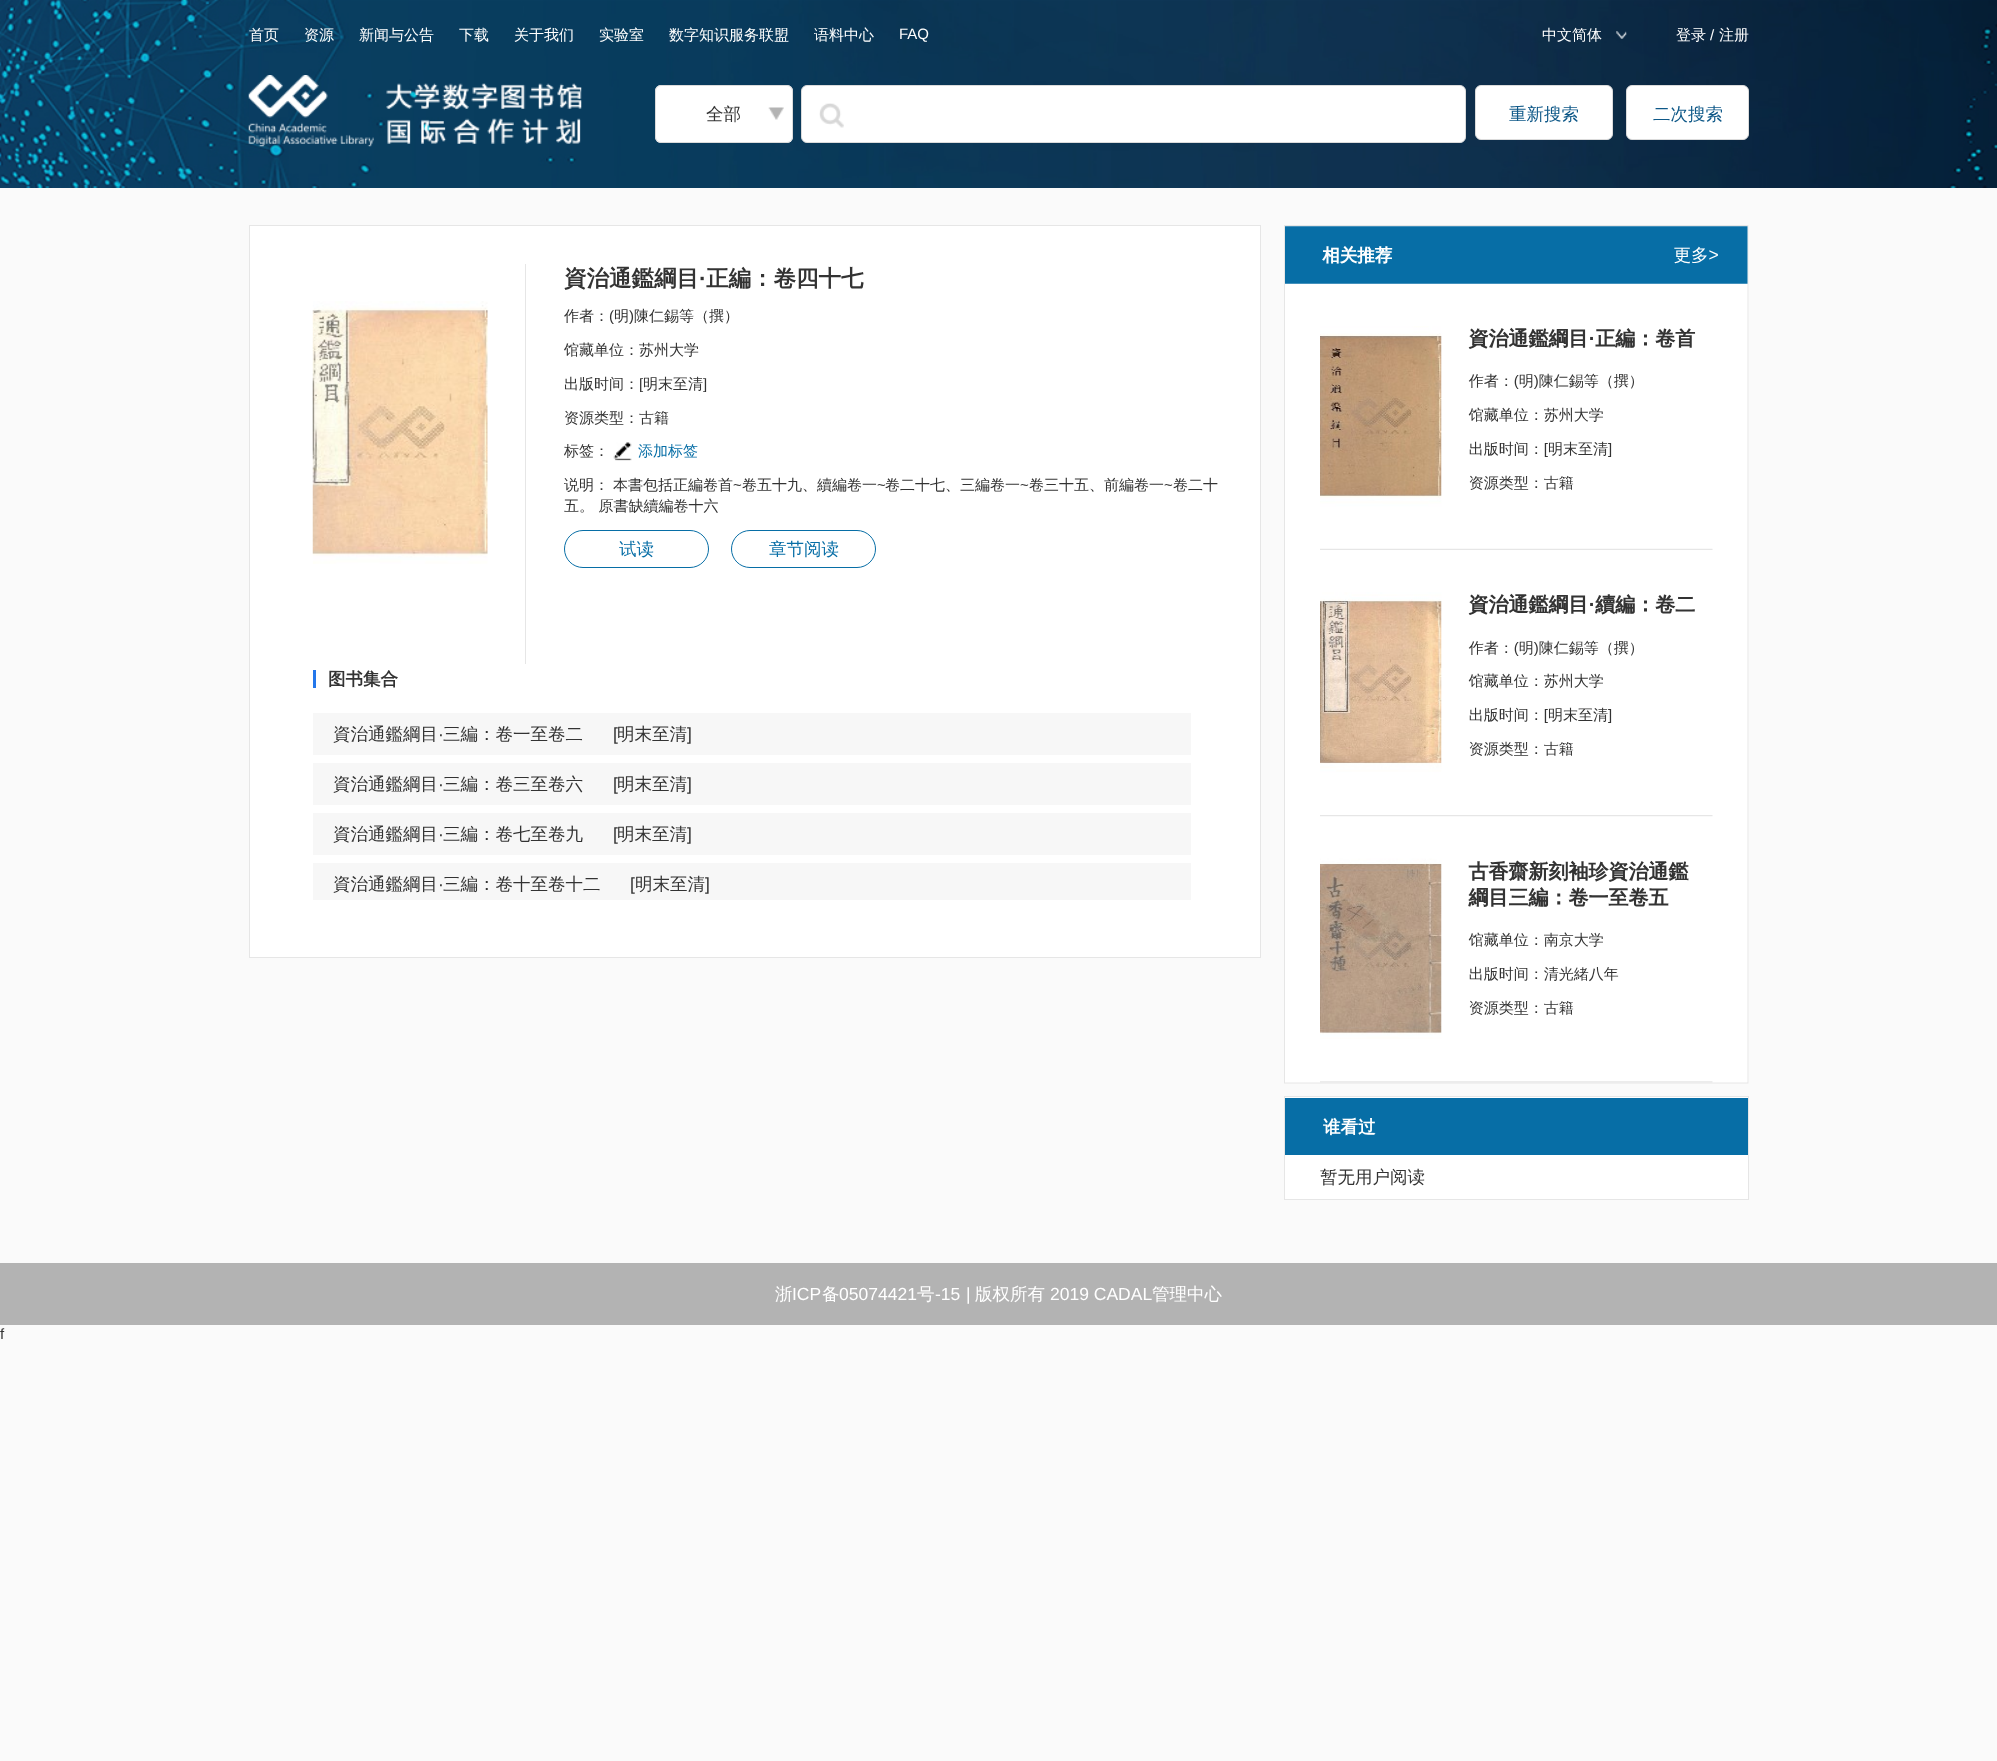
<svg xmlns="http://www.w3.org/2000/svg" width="1997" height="1761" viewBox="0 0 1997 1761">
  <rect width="100%" height="100%" fill="#fafafa"/>
  <image x="0" y="0" width="1997" height="188" href="img1.png"/>
  <text x="249" y="40" font-family="WenQuanYi Zen Hei" font-size="15" font-weight="500" fill="#ffffff">首页</text>
  <text x="304" y="40" font-family="WenQuanYi Zen Hei" font-size="15" font-weight="500" fill="#ffffff">资源</text>
  <text x="359" y="40" font-family="WenQuanYi Zen Hei" font-size="15" font-weight="500" fill="#ffffff">新闻与公告</text>
  <text x="459" y="40" font-family="WenQuanYi Zen Hei" font-size="15" font-weight="500" fill="#ffffff">下载</text>
  <text x="514" y="40" font-family="WenQuanYi Zen Hei" font-size="15" font-weight="500" fill="#ffffff">关于我们</text>
  <text x="599" y="40" font-family="WenQuanYi Zen Hei" font-size="15" font-weight="500" fill="#ffffff">实验室</text>
  <text x="669" y="40" font-family="WenQuanYi Zen Hei" font-size="15" font-weight="500" fill="#ffffff">数字知识服务联盟</text>
  <text x="814" y="40" font-family="WenQuanYi Zen Hei" font-size="15" font-weight="500" fill="#ffffff">语料中心</text>
  <text x="899" y="39" font-family="Liberation Sans" font-size="15" fill="#ffffff">FAQ</text>
  <text x="1542" y="40" font-family="WenQuanYi Zen Hei" font-size="15" font-weight="500" fill="#ffffff">中文简体</text>
  <image x="1616" y="31" width="11" height="8" href="img2.png"/>
  <text x="1676" y="40" font-family="WenQuanYi Zen Hei" font-size="15" font-weight="500" fill="#ffffff">登录</text>
  <text x="1710" y="40" font-family="Liberation Sans" font-size="15" fill="#ffffff">/</text>
  <text x="1719" y="40" font-family="WenQuanYi Zen Hei" font-size="15" font-weight="500" fill="#ffffff">注册</text>
  <image x="248" y="75" width="334" height="72" href="img3.png"/>
  <rect x="655" y="85" width="138" height="58" rx="6" fill="#ffffff"/>
  <image x="768" y="107" width="16" height="13" href="img4.png"/>
  <rect x="655.5" y="85.5" width="137" height="57" rx="5.5" fill="none" stroke="#dbdbdb"/>
  <text x="706" y="120" font-family="WenQuanYi Zen Hei" font-size="17.5" font-weight="500" fill="#333333">全部</text>
  <rect x="801.5" y="85.5" width="664" height="57" rx="5.5" fill="#ffffff" stroke="#dbdbdb"/>
  <image x="819" y="103" width="25" height="25" href="img5.png"/>
  <rect x="1475.5" y="85.5" width="137" height="54" rx="5.5" fill="#ffffff" stroke="#dbdbdb"/>
  <text x="1509" y="120" font-family="WenQuanYi Zen Hei" font-size="17.5" font-weight="500" fill="#0e5888">重新搜索</text>
  <rect x="1626.5" y="85.5" width="122" height="54" rx="5.5" fill="#ffffff" stroke="#dbdbdb"/>
  <text x="1653" y="120" font-family="WenQuanYi Zen Hei" font-size="17.5" font-weight="500" fill="#0e5888">二次搜索</text>
  <rect x="249.5" y="225.5" width="1011" height="732" fill="#ffffff" stroke="#e6e6e6"/>
  <rect x="525" y="264" width="1" height="400" fill="#e6e6e6"/>
  <image x="312" y="301" width="176" height="263" href="img6.png"/>
  <text x="564" y="286" font-family="WenQuanYi Zen Hei" font-size="22.5" font-weight="bold" fill="#333333">資治通鑑綱目</text>
  <text x="699" y="286" font-family="Liberation Sans" font-size="22.5" font-weight="bold" fill="#333333">·</text>
  <text x="706" y="286" font-family="WenQuanYi Zen Hei" font-size="22.5" font-weight="bold" fill="#333333">正編：卷四十七</text>
  <text x="564" y="321" font-family="WenQuanYi Zen Hei" font-size="15" font-weight="500" fill="#333333">作者：</text>
  <text x="609" y="321" font-family="Liberation Sans" font-size="15" fill="#333333">(</text>
  <text x="614" y="321" font-family="WenQuanYi Zen Hei" font-size="15" font-weight="500" fill="#333333">明</text>
  <text x="629" y="321" font-family="Liberation Sans" font-size="15" fill="#333333">)</text>
  <text x="634" y="321" font-family="WenQuanYi Zen Hei" font-size="15" font-weight="500" fill="#333333">陳仁錫等（撰）</text>
  <text x="564" y="355" font-family="WenQuanYi Zen Hei" font-size="15" font-weight="500" fill="#333333">馆藏单位：苏州大学</text>
  <text x="564" y="389" font-family="WenQuanYi Zen Hei" font-size="15" font-weight="500" fill="#333333">出版时间：</text>
  <text x="639" y="389" font-family="Liberation Sans" font-size="15" fill="#333333">[</text>
  <text x="643" y="389" font-family="WenQuanYi Zen Hei" font-size="15" font-weight="500" fill="#333333">明末至清</text>
  <text x="703" y="389" font-family="Liberation Sans" font-size="15" fill="#333333">]</text>
  <text x="564" y="423" font-family="WenQuanYi Zen Hei" font-size="15" font-weight="500" fill="#333333">资源类型：古籍</text>
  <text x="564" y="456" font-family="WenQuanYi Zen Hei" font-size="15" font-weight="500" fill="#333333">标签：</text>
  <image x="613" y="442" width="19" height="19" href="img7.png"/>
  <text x="638" y="456" font-family="WenQuanYi Zen Hei" font-size="15" font-weight="500" fill="#076ea6">添加标签</text>
  <text x="564" y="490" font-family="WenQuanYi Zen Hei" font-size="15" font-weight="500" fill="#333333">说明：</text>
  <text x="613" y="490" font-family="WenQuanYi Zen Hei" font-size="15" font-weight="500" fill="#333333">本書包括正編卷首</text>
  <text x="733" y="490" font-family="Liberation Sans" font-size="15" fill="#333333">~</text>
  <text x="742" y="490" font-family="WenQuanYi Zen Hei" font-size="15" font-weight="500" fill="#333333">卷五十九、續編卷一</text>
  <text x="877" y="490" font-family="Liberation Sans" font-size="15" fill="#333333">~</text>
  <text x="885" y="490" font-family="WenQuanYi Zen Hei" font-size="15" font-weight="500" fill="#333333">卷二十七、三編卷一</text>
  <text x="1020" y="490" font-family="Liberation Sans" font-size="15" fill="#333333">~</text>
  <text x="1029" y="490" font-family="WenQuanYi Zen Hei" font-size="15" font-weight="500" fill="#333333">卷三十五、前編卷一</text>
  <text x="1164" y="490" font-family="Liberation Sans" font-size="15" fill="#333333">~</text>
  <text x="1173" y="490" font-family="WenQuanYi Zen Hei" font-size="15" font-weight="500" fill="#333333">卷二十</text>
  <text x="564" y="511" font-family="WenQuanYi Zen Hei" font-size="15" font-weight="500" fill="#333333">五。 原書缺續編卷十六</text>
  <rect x="564.5" y="530.5" width="144" height="37" rx="18.5" fill="none" stroke="#076ea6"/>
  <text x="619" y="555" font-family="WenQuanYi Zen Hei" font-size="17.5" font-weight="500" fill="#076ea6">试读</text>
  <rect x="731.5" y="530.5" width="144" height="37" rx="18.5" fill="none" stroke="#076ea6"/>
  <text x="769" y="555" font-family="WenQuanYi Zen Hei" font-size="17.5" font-weight="500" fill="#076ea6">章节阅读</text>
  <rect x="313" y="670" width="3" height="18" fill="#2377eb"/>
  <text x="328" y="685" font-family="WenQuanYi Zen Hei" font-size="17.5" font-weight="bold" fill="#333333">图书集合</text>
  <rect x="313" y="713" width="878" height="42" fill="#f7f7f7"/>
  <text x="333" y="740" font-family="WenQuanYi Zen Hei" font-size="17.5" font-weight="500" fill="#333333">資治通鑑綱目</text>
  <text x="438" y="740" font-family="Liberation Sans" font-size="17.5" fill="#333333">·</text>
  <text x="443" y="740" font-family="WenQuanYi Zen Hei" font-size="17.5" font-weight="500" fill="#333333">三編：卷一至卷二</text>
  <text x="613" y="740" font-family="Liberation Sans" font-size="17.5" fill="#333333">[</text>
  <text x="617" y="740" font-family="WenQuanYi Zen Hei" font-size="17.5" font-weight="500" fill="#333333">明末至清</text>
  <text x="687" y="740" font-family="Liberation Sans" font-size="17.5" fill="#333333">]</text>
  <rect x="313" y="763" width="878" height="42" fill="#f7f7f7"/>
  <text x="333" y="790" font-family="WenQuanYi Zen Hei" font-size="17.5" font-weight="500" fill="#333333">資治通鑑綱目</text>
  <text x="438" y="790" font-family="Liberation Sans" font-size="17.5" fill="#333333">·</text>
  <text x="443" y="790" font-family="WenQuanYi Zen Hei" font-size="17.5" font-weight="500" fill="#333333">三編：卷三至卷六</text>
  <text x="613" y="790" font-family="Liberation Sans" font-size="17.5" fill="#333333">[</text>
  <text x="617" y="790" font-family="WenQuanYi Zen Hei" font-size="17.5" font-weight="500" fill="#333333">明末至清</text>
  <text x="687" y="790" font-family="Liberation Sans" font-size="17.5" fill="#333333">]</text>
  <rect x="313" y="813" width="878" height="42" fill="#f7f7f7"/>
  <text x="333" y="840" font-family="WenQuanYi Zen Hei" font-size="17.5" font-weight="500" fill="#333333">資治通鑑綱目</text>
  <text x="438" y="840" font-family="Liberation Sans" font-size="17.5" fill="#333333">·</text>
  <text x="443" y="840" font-family="WenQuanYi Zen Hei" font-size="17.5" font-weight="500" fill="#333333">三編：卷七至卷九</text>
  <text x="613" y="840" font-family="Liberation Sans" font-size="17.5" fill="#333333">[</text>
  <text x="617" y="840" font-family="WenQuanYi Zen Hei" font-size="17.5" font-weight="500" fill="#333333">明末至清</text>
  <text x="687" y="840" font-family="Liberation Sans" font-size="17.5" fill="#333333">]</text>
  <rect x="313" y="863" width="878" height="37" fill="#f7f7f7"/>
  <text x="333" y="890" font-family="WenQuanYi Zen Hei" font-size="17.5" font-weight="500" fill="#333333">資治通鑑綱目</text>
  <text x="438" y="890" font-family="Liberation Sans" font-size="17.5" fill="#333333">·</text>
  <text x="443" y="890" font-family="WenQuanYi Zen Hei" font-size="17.5" font-weight="500" fill="#333333">三編：卷十至卷十二</text>
  <text x="630" y="890" font-family="Liberation Sans" font-size="17.5" fill="#333333">[</text>
  <text x="635" y="890" font-family="WenQuanYi Zen Hei" font-size="17.5" font-weight="500" fill="#333333">明末至清</text>
  <text x="705" y="890" font-family="Liberation Sans" font-size="17.5" fill="#333333">]</text>
  <image x="1284" y="225" width="465" height="859" href="img8.png"/>
  <rect x="1284.5" y="1096.5" width="464" height="103" fill="#ffffff" stroke="#e6e6e6"/>
  <rect x="1285" y="1098" width="463" height="57" fill="#076ea6"/>
  <text x="1323" y="1133" font-family="WenQuanYi Zen Hei" font-size="17.5" font-weight="bold" fill="#ffffff">谁看过</text>
  <text x="1320" y="1183" font-family="WenQuanYi Zen Hei" font-size="17.5" font-weight="500" fill="#333333">暂无用户阅读</text>
  <rect x="0" y="1263" width="1997" height="62" fill="#b3b3b3"/>
  <text x="775" y="1300" font-family="WenQuanYi Zen Hei" font-size="17.5" font-weight="500" fill="#ffffff">浙</text>
  <text x="792" y="1300" font-family="Liberation Sans" font-size="17.5" fill="#ffffff">ICP</text>
  <text x="822" y="1300" font-family="WenQuanYi Zen Hei" font-size="17.5" font-weight="500" fill="#ffffff">备</text>
  <text x="839" y="1300" font-family="Liberation Sans" font-size="17.5" fill="#ffffff">05074421</text>
  <text x="917" y="1300" font-family="WenQuanYi Zen Hei" font-size="17.5" font-weight="500" fill="#ffffff">号</text>
  <text x="935" y="1300" font-family="Liberation Sans" font-size="17.5" fill="#ffffff">-15</text>
  <text x="966" y="1300" font-family="Liberation Sans" font-size="17.5" fill="#ffffff">|</text>
  <text x="975" y="1300" font-family="WenQuanYi Zen Hei" font-size="17.5" font-weight="500" fill="#ffffff">版权所有</text>
  <text x="1050" y="1300" font-family="Liberation Sans" font-size="17.5" fill="#ffffff">2019 CADAL</text>
  <text x="1152" y="1300" font-family="WenQuanYi Zen Hei" font-size="17.5" font-weight="500" fill="#ffffff">管理中心</text>
  <text x="0" y="1339" font-family="Liberation Sans" font-size="15" fill="#333333">f</text>
</svg>
